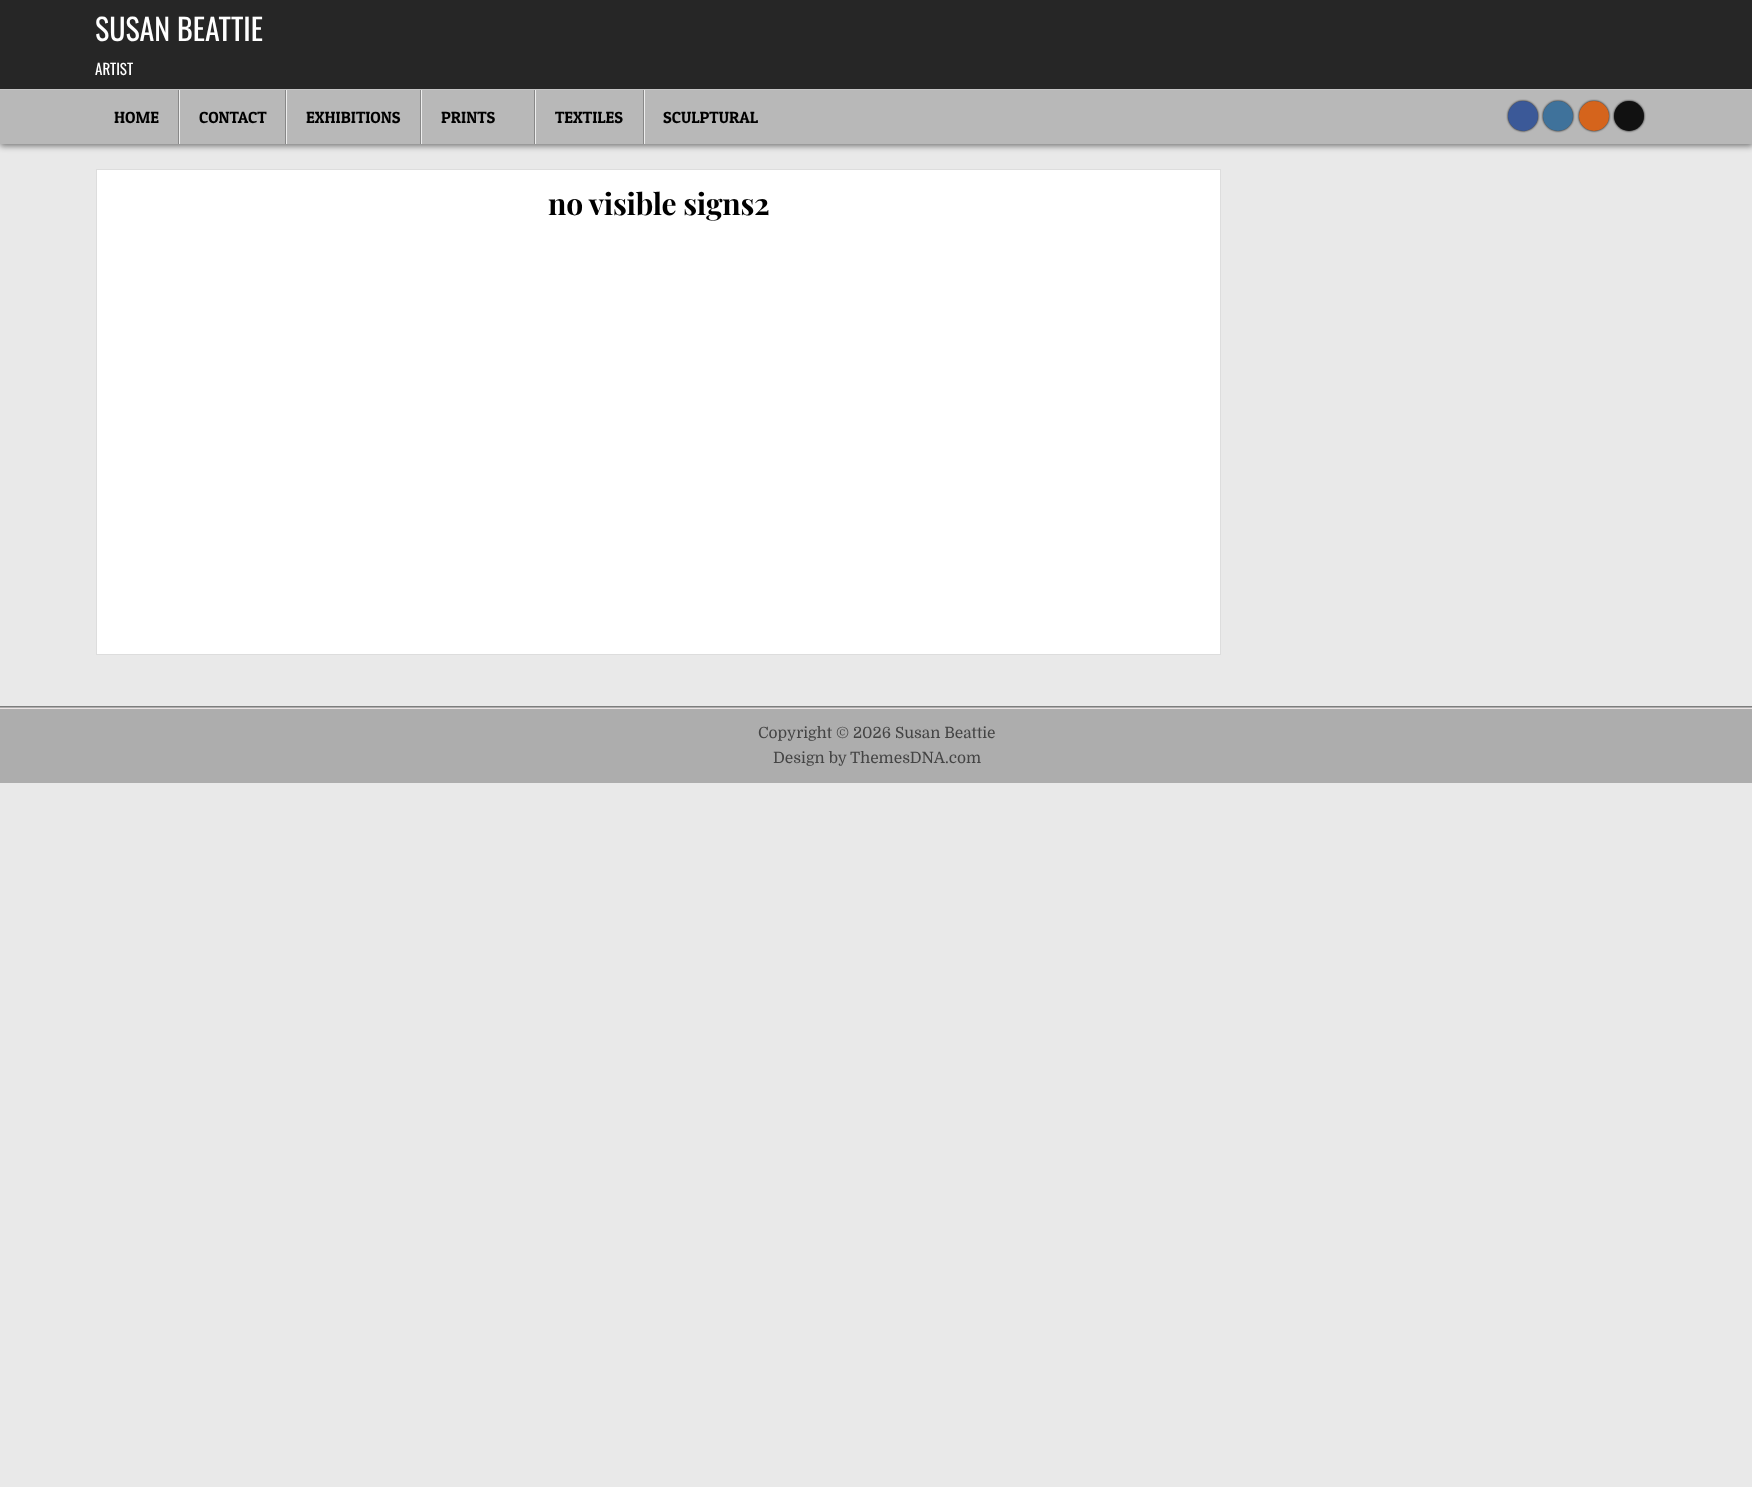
<svg xmlns="http://www.w3.org/2000/svg" width="1752" height="1487" viewBox="0 0 1752 1487">
  <defs>
    <filter id="blur1" x="-50%" y="-200%" width="200%" height="500%"><feGaussianBlur stdDeviation="3"/></filter>
    <filter id="blur2" x="-50%" y="-200%" width="200%" height="500%"><feGaussianBlur stdDeviation="1"/></filter>
  </defs>
  <rect width="100%" height="100%" fill="#e9e9e9"/>
  <rect x="0" y="91" width="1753" height="55" fill="#000000" fill-opacity="0.5" filter="url(#blur1)"/>
  <rect x="0" y="0" width="1752" height="89" fill="#262626"/>
  <text x="95" y="41" font-family="Oswald" font-size="30" fill="#ffffff">SUSAN BEATTIE</text>
  <text x="95" y="75" font-family="Oswald" font-size="15" fill="#ffffff">ARTIST</text>
  <rect x="0" y="90" width="1752" height="54" fill="#b8b8b8"/>
  <rect x="0" y="89" width="1752" height="1" fill="#c5c5c5"/>
  <rect x="178" y="90" width="1" height="54" fill="#888888"/>
  <text x="114" y="123" font-family="Patua One" font-size="16.25" fill="#000000">HOME</text>
  <rect x="285" y="90" width="1" height="54" fill="#888888"/>
  <rect x="179" y="90" width="1" height="54" fill="#eeeeee"/>
  <text x="199" y="123" font-family="Patua One" font-size="16.25" fill="#000000">CONTACT</text>
  <rect x="420" y="90" width="1" height="54" fill="#888888"/>
  <rect x="286" y="90" width="1" height="54" fill="#eeeeee"/>
  <text x="306" y="123" font-family="Patua One" font-size="16.25" fill="#000000">EXHIBITIONS</text>
  <rect x="534" y="90" width="1" height="54" fill="#888888"/>
  <rect x="421" y="90" width="1" height="54" fill="#eeeeee"/>
  <text x="441" y="123" font-family="Patua One" font-size="16.25" fill="#000000">PRINTS</text>
  <rect x="643" y="90" width="1" height="54" fill="#888888"/>
  <rect x="535" y="90" width="1" height="54" fill="#eeeeee"/>
  <text x="555" y="123" font-family="Patua One" font-size="16.25" fill="#000000">TEXTILES</text>
  <rect x="644" y="90" width="1" height="54" fill="#eeeeee"/>
  <text x="663" y="123" font-family="Patua One" font-size="16.25" fill="#000000">SCULPTURAL</text>
  <rect x="1508" y="101" width="30" height="30" rx="15" fill="#000000" filter="url(#blur2)"/>
  <circle cx="1523" cy="116" r="15" fill="#3b5998"/>
  <rect x="1543" y="101" width="30" height="30" rx="15" fill="#000000" filter="url(#blur2)"/>
  <circle cx="1558" cy="116" r="15" fill="#3f729b"/>
  <rect x="1579" y="101" width="30" height="30" rx="15" fill="#000000" filter="url(#blur2)"/>
  <circle cx="1594" cy="116" r="15" fill="#d5641c"/>
  <rect x="1614" y="101" width="30" height="30" rx="15" fill="#000000" filter="url(#blur2)"/>
  <circle cx="1629" cy="116" r="15" fill="#111111"/>
  <rect x="96.5" y="169.5" width="1124" height="485" fill="#ffffff" stroke="#dddddd"/>
  <text x="548" y="215" font-family="Playfair Display" font-size="30" font-weight="bold" letter-spacing="-0.25" fill="#000000">no visible signs2</text>
  <rect x="0" y="707" width="1752" height="76" fill="#adadad"/>
  <rect x="0" y="706" width="1752" height="1" fill="#7d7d7d"/>
  <rect x="0" y="708" width="1752" height="1" fill="#eae3e3"/>
  <text x="758" y="738" font-family="Domine" font-size="15.5" fill="#444444">Copyright © 2026 Susan Beattie</text>
  <text x="773" y="763" font-family="Domine" font-size="15.5" fill="#444444">Design by ThemesDNA.com</text>
</svg>
